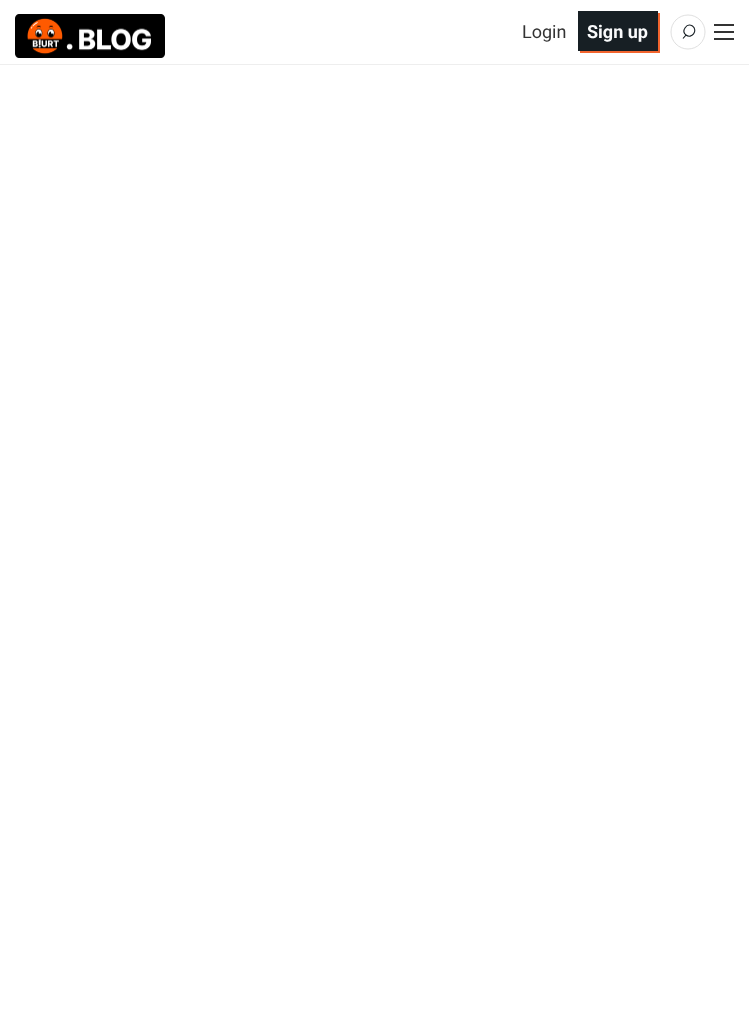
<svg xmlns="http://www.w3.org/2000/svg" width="749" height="1031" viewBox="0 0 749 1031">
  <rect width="100%" height="100%" fill="#ffffff"/>
  <rect x="0" y="64" width="749" height="1" fill="#eeeeee"/>
  <image x="15" y="14" width="150" height="44" href="img1.png"/>
  <text x="522" y="38" font-family="Roboto" font-size="18" fill="#333333">Login</text>
  <path d="M580 51V53H660V13H658V51Z" fill="#f2652e"/>
  <rect x="578" y="11" width="80" height="40" fill="#171f24"/>
  <text x="587" y="38" font-family="Roboto" font-size="18" font-weight="bold" fill="#fafbfc">Sign up</text>
  <circle cx="688" cy="32" r="17" fill="none" stroke="#cacaca" stroke-width="0.6"/>
  <path d="M686 35L683 38.5L686 35C681 31 686.5 22.5 692.5 26C698.5 30.5 691.5 39.5 686 35Z" fill="none" stroke="#171f24" stroke-width="1.1"/>
  <rect x="714" y="38" width="20" height="2" fill="#333333"/>
  <rect x="714" y="31" width="20" height="2" fill="#333333"/>
  <rect x="714" y="24" width="20" height="2" fill="#333333"/>
</svg>
